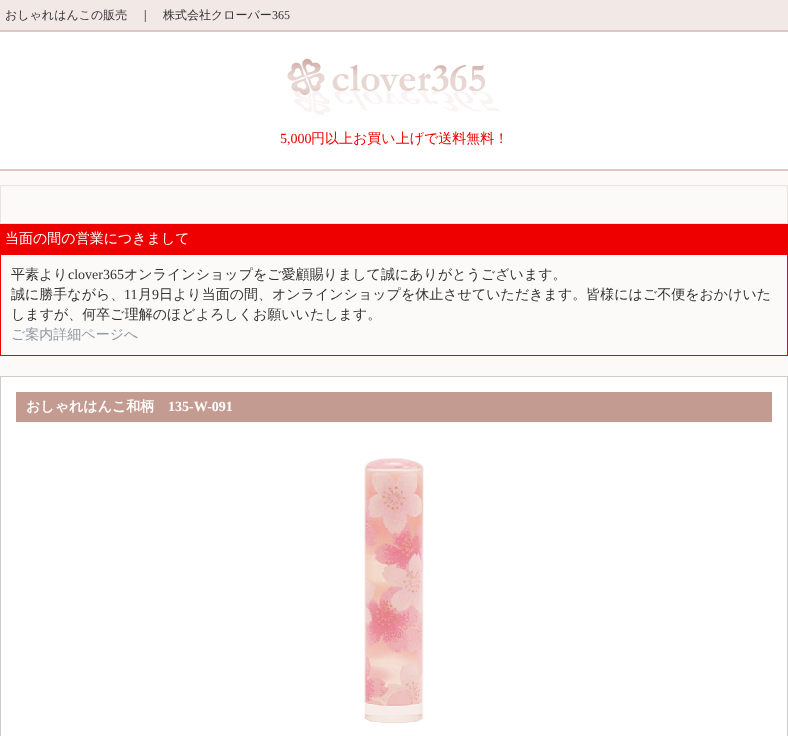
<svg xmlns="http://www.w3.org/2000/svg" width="788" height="736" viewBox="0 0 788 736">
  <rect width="100%" height="100%" fill="#fcf9f9"/>
  <rect x="0" y="0" width="788" height="30" fill="#f2e8e6"/>
  <rect x="0" y="30" width="788" height="2" fill="#dec7c1"/>
  <text x="5" y="19" font-family="WenQuanYi Zen Hei" font-size="12" font-weight="500" fill="#333333">おしゃれはんこの販売　｜　株式会社クローバー</text>
  <text x="272" y="19" font-family="Liberation Serif" font-size="12" fill="#333333">365</text>
  <rect x="0" y="32" width="788" height="137" fill="#ffffff"/>
  <rect x="0" y="169" width="788" height="2" fill="#dec7c1"/>
  <image x="287" y="58" width="214" height="57" href="img1.png"/>
  <text x="280" y="143" font-family="Liberation Serif" font-size="14" fill="#ee0000">5,000</text>
  <text x="311" y="143" font-family="WenQuanYi Zen Hei" font-size="14" font-weight="500" fill="#ee0000">円以上お買い上げで送料無料！</text>
  <rect x="0.5" y="185.5" width="787" height="38" fill="none" stroke="#e8e5e0"/>
  <rect x="0" y="224" width="788" height="30" fill="#ee0000"/>
  <text x="5" y="243" font-family="WenQuanYi Zen Hei" font-size="14" font-weight="500" fill="#ffffff">当面の間の営業につきまして</text>
  <rect x="0.5" y="254.5" width="787" height="101" fill="none" stroke="#ee0000"/>
  <text x="11" y="279" font-family="WenQuanYi Zen Hei" font-size="14" font-weight="500" fill="#333333">平素より</text>
  <text x="68" y="279" font-family="Liberation Serif" font-size="14" fill="#333333">clover365</text>
  <text x="124" y="279" font-family="WenQuanYi Zen Hei" font-size="14" font-weight="500" fill="#333333">オンラインショップをご愛顧賜りまして誠にありがとうございます。</text>
  <text x="11" y="299" font-family="WenQuanYi Zen Hei" font-size="14" font-weight="500" fill="#333333">誠に勝手ながら、</text>
  <text x="124" y="299" font-family="Liberation Serif" font-size="14" fill="#333333">11</text>
  <text x="138" y="299" font-family="WenQuanYi Zen Hei" font-size="14" font-weight="500" fill="#333333">月</text>
  <text x="152" y="299" font-family="Liberation Serif" font-size="14" fill="#333333">9</text>
  <text x="159" y="299" font-family="WenQuanYi Zen Hei" font-size="14" font-weight="500" fill="#333333">日より当面の間、オンラインショップを休止させていただきます。皆様にはご不便をおかけいた</text>
  <text x="11" y="319" font-family="WenQuanYi Zen Hei" font-size="14" font-weight="500" fill="#333333">しますが、何卒ご理解のほどよろしくお願いいたします。</text>
  <text x="11" y="339" font-family="WenQuanYi Zen Hei" font-size="14" font-weight="500" fill="#8e9aa2">ご案内詳細ページへ</text>
  <rect x="0.5" y="376.5" width="787" height="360" fill="#ffffff" stroke="#cccccc"/>
  <rect x="16" y="392" width="756" height="30" fill="#c49b91"/>
  <text x="26" y="411" font-family="WenQuanYi Zen Hei" font-size="14" font-weight="bold" fill="#ffffff">おしゃれはんこ和柄</text>
  <text x="168" y="411" font-family="Liberation Serif" font-size="14" font-weight="bold" fill="#ffffff">135-W-091</text>
  <image x="364" y="458" width="60" height="265" href="img2.png"/>
</svg>
